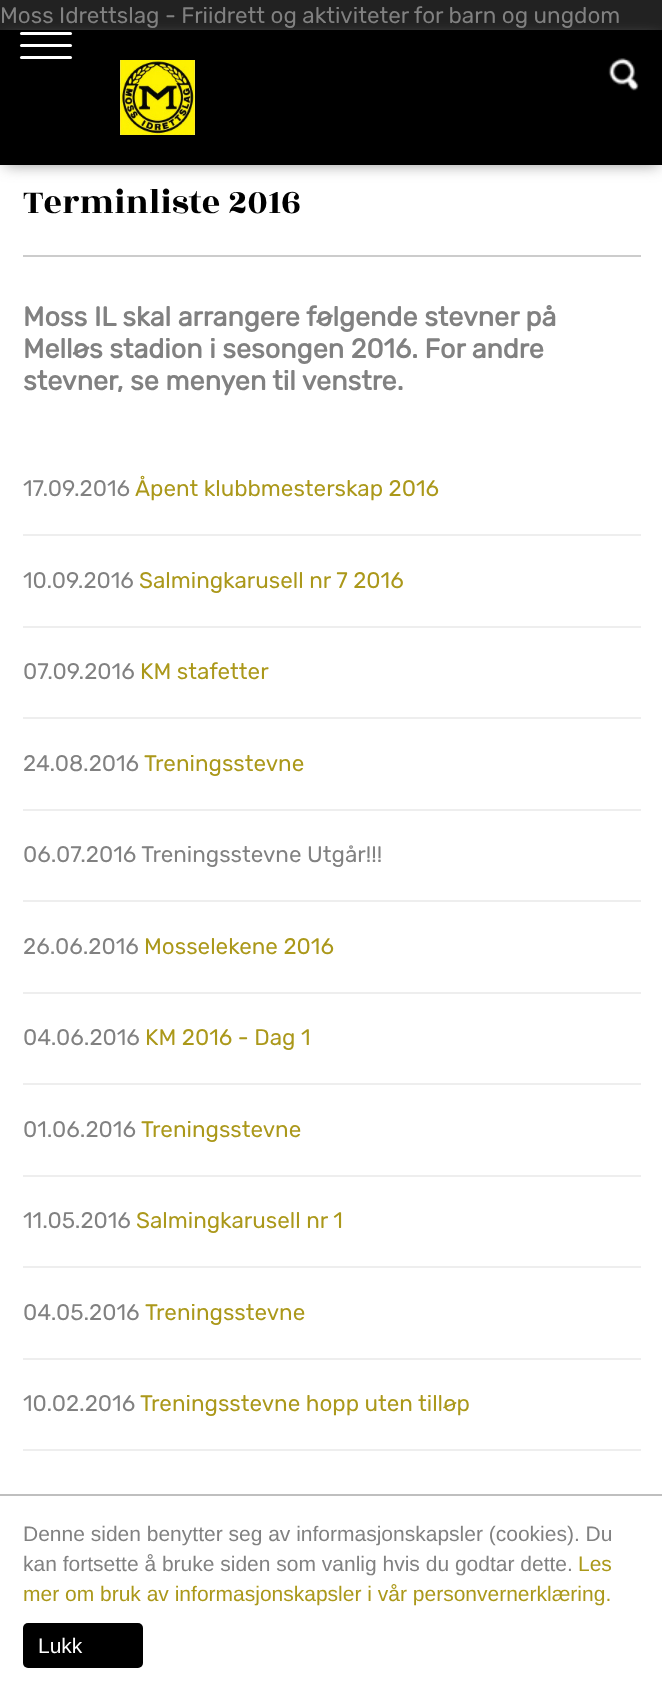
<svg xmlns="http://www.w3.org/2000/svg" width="662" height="1690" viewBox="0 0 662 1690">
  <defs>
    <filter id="blur1" x="-50%" y="-200%" width="200%" height="500%"><feGaussianBlur stdDeviation="7.5"/></filter>
  </defs>
  <rect width="100%" height="100%" fill="#222222"/>
  <text x="0" y="23" font-family="Rubik" font-size="22.5" fill="#818181">Moss Idrettslag - Friidrett og aktiviteter for barn og ungdom</text>
  <rect x="0" y="165" width="662" height="1329" fill="#ffffff"/>
  <rect x="5" y="39" width="654" height="126" fill="#999999" filter="url(#blur1)"/>
  <rect x="0" y="30" width="662" height="135" fill="#000000"/>
  <image x="120" y="60" width="75" height="75" href="img1.png"/>
  <image x="608" y="58" width="31" height="33" href="img2.png"/>
  <rect x="20" y="44" width="52" height="3" rx="1.5" fill="#ffffff"/>
  <rect x="20" y="32" width="52" height="3" rx="1.5" fill="#ffffff"/>
  <rect x="20" y="56" width="52" height="3" rx="1.5" fill="#ffffff"/>
  <rect x="23" y="255" width="618" height="2" fill="#cccccc"/>
  <text x="23" y="213" font-family="Rozha One" font-size="36" fill="#000000">Terminliste 2016</text>
  <text x="23" y="326" font-family="Rubik" font-size="27" font-weight="bold" fill="#818181">Moss IL skal arrangere følgende stevner på</text>
  <text x="23" y="358" font-family="Rubik" font-size="27" font-weight="bold" fill="#818181">Melløs stadion i sesongen 2016. For andre</text>
  <text x="23" y="390" font-family="Rubik" font-size="27" font-weight="bold" fill="#818181">stevner, se menyen til venstre.</text>
  <text x="23" y="496" font-family="Rubik" font-size="22.5" fill="#818181">17.09.2016</text>
  <text x="135" y="496" font-family="Rubik" font-size="22.5" fill="#ab981a">Åpent klubbmesterskap 2016</text>
  <rect x="23" y="534" width="618" height="2" fill="#eeeeee"/>
  <text x="23" y="588" font-family="Rubik" font-size="22.5" fill="#818181">10.09.2016</text>
  <text x="139" y="588" font-family="Rubik" font-size="22.5" fill="#ab981a">Salmingkarusell nr 7 2016</text>
  <rect x="23" y="626" width="618" height="2" fill="#eeeeee"/>
  <text x="23" y="679" font-family="Rubik" font-size="22.5" fill="#818181">07.09.2016</text>
  <text x="140" y="679" font-family="Rubik" font-size="22.5" fill="#ab981a">KM stafetter</text>
  <rect x="23" y="717" width="618" height="2" fill="#eeeeee"/>
  <text x="23" y="771" font-family="Rubik" font-size="22.5" fill="#818181">24.08.2016</text>
  <text x="144" y="771" font-family="Rubik" font-size="22.5" fill="#ab981a">Treningsstevne</text>
  <rect x="23" y="809" width="618" height="2" fill="#eeeeee"/>
  <text x="23" y="862" font-family="Rubik" font-size="22.5" fill="#818181">06.07.2016 Treningsstevne Utgår!!!</text>
  <rect x="23" y="900" width="618" height="2" fill="#eeeeee"/>
  <text x="23" y="954" font-family="Rubik" font-size="22.5" fill="#818181">26.06.2016</text>
  <text x="144" y="954" font-family="Rubik" font-size="22.5" fill="#ab981a">Mosselekene 2016</text>
  <rect x="23" y="992" width="618" height="2" fill="#eeeeee"/>
  <text x="23" y="1045" font-family="Rubik" font-size="22.5" fill="#818181">04.06.2016</text>
  <text x="145" y="1045" font-family="Rubik" font-size="22.5" fill="#ab981a">KM 2016 - Dag 1</text>
  <rect x="23" y="1083" width="618" height="2" fill="#eeeeee"/>
  <text x="23" y="1137" font-family="Rubik" font-size="22.5" fill="#818181">01.06.2016</text>
  <text x="141" y="1137" font-family="Rubik" font-size="22.5" fill="#ab981a">Treningsstevne</text>
  <rect x="23" y="1175" width="618" height="2" fill="#eeeeee"/>
  <text x="23" y="1228" font-family="Rubik" font-size="22.5" fill="#818181">11.05.2016</text>
  <text x="136" y="1228" font-family="Rubik" font-size="22.5" fill="#ab981a">Salmingkarusell nr 1</text>
  <rect x="23" y="1266" width="618" height="2" fill="#eeeeee"/>
  <text x="23" y="1320" font-family="Rubik" font-size="22.5" fill="#818181">04.05.2016</text>
  <text x="145" y="1320" font-family="Rubik" font-size="22.5" fill="#ab981a">Treningsstevne</text>
  <rect x="23" y="1358" width="618" height="2" fill="#eeeeee"/>
  <text x="23" y="1411" font-family="Rubik" font-size="22.5" fill="#818181">10.02.2016</text>
  <text x="140" y="1411" font-family="Rubik" font-size="22.5" fill="#ab981a">Treningsstevne hopp uten tilløp</text>
  <rect x="23" y="1449" width="618" height="2" fill="#eeeeee"/>
  <rect x="0" y="1496" width="662" height="194" fill="#ffffff"/>
  <rect x="0" y="1494" width="662" height="2" fill="#bfbfbf"/>
  <text x="23" y="1541" font-family="Liberation Sans" font-size="21" fill="#818181">Denne siden benytter seg av informasjonskapsler (cookies). Du</text>
  <text x="23" y="1571" font-family="Liberation Sans" font-size="21" fill="#818181">kan fortsette å bruke siden som vanlig hvis du godtar dette.</text>
  <text x="578" y="1571" font-family="Liberation Sans" font-size="21" fill="#ab981a">Les</text>
  <text x="23" y="1601" font-family="Liberation Sans" font-size="21" fill="#ab981a">mer om bruk av informasjonskapsler i vår personvernerklæring.</text>
  <rect x="23" y="1623" width="120" height="45" rx="5" fill="#000000"/>
  <text x="38" y="1653" font-family="Liberation Sans" font-size="21" fill="#ffffff">Lukk</text>
</svg>
